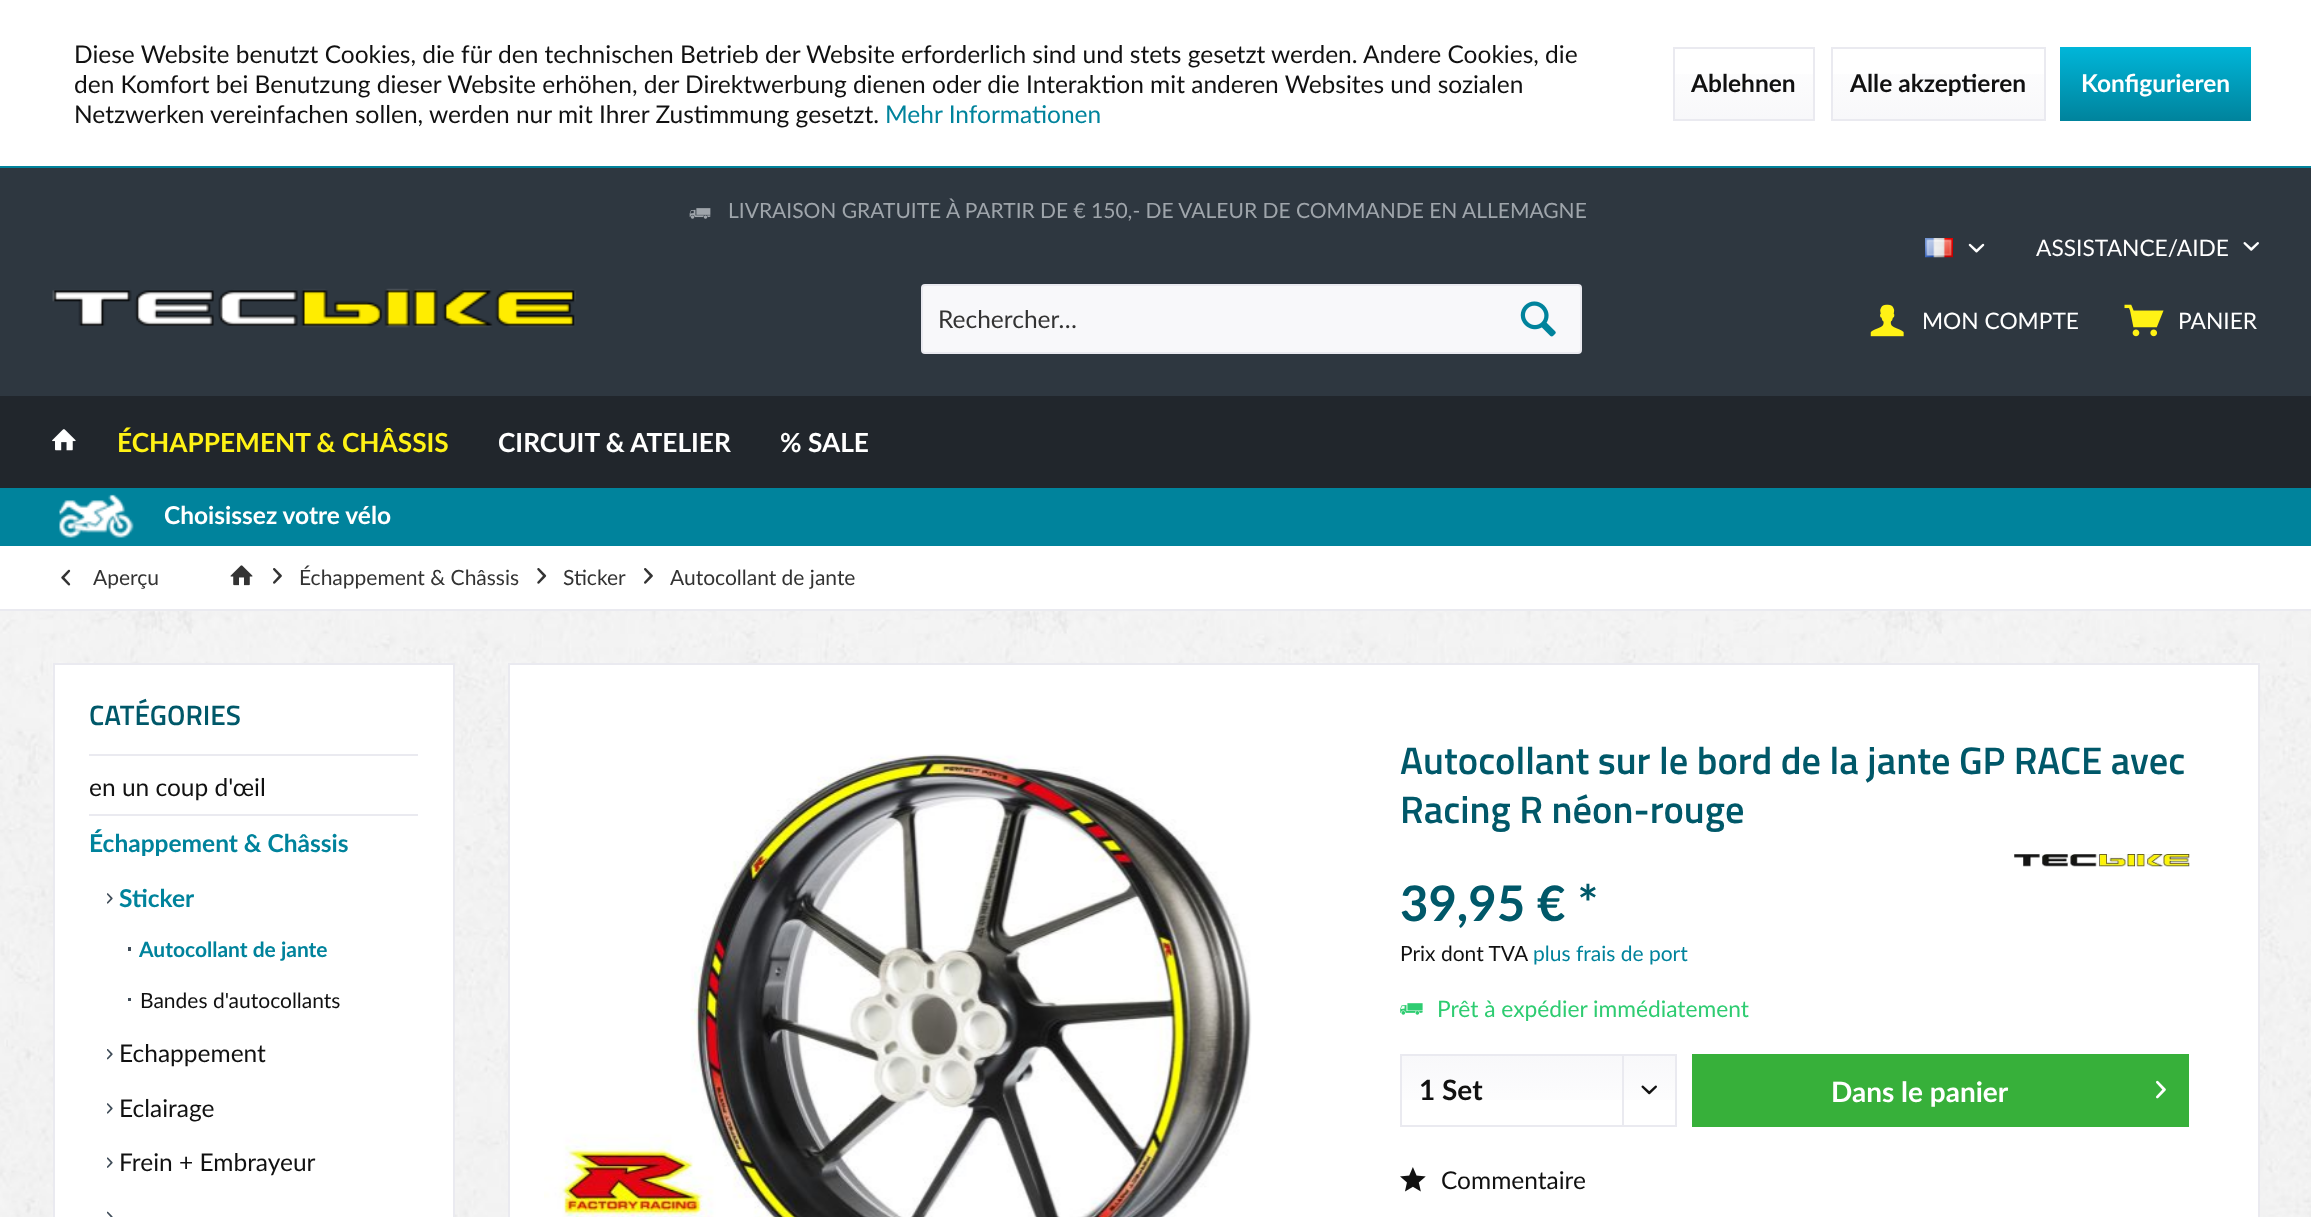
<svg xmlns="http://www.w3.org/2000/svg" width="2311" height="1217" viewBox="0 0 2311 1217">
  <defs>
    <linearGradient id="g1" gradientUnits="userSpaceOnUse" x1="1744" y1="49" x2="1744" y2="119"><stop offset="0" stop-color="#ffffff"/><stop offset="1" stop-color="#f8f8fa"/></linearGradient>
    <linearGradient id="g2" gradientUnits="userSpaceOnUse" x1="1938" y1="49" x2="1938" y2="119"><stop offset="0" stop-color="#ffffff"/><stop offset="1" stop-color="#f8f8fa"/></linearGradient>
    <linearGradient id="g3" gradientUnits="userSpaceOnUse" x1="2155" y1="47" x2="2155" y2="121"><stop offset="0" stop-color="#00b6d9"/><stop offset="1" stop-color="#00839c"/></linearGradient>
    <linearGradient id="g4" gradientUnits="userSpaceOnUse" x1="1538" y1="1055" x2="1538" y2="1125"><stop offset="0" stop-color="#f8f8fa"/><stop offset="1" stop-color="#ffffff"/></linearGradient>
  </defs>
  <rect width="100%" height="100%" fill="#ffffff"/>
  <image x="0" y="611" width="2311" height="606" href="img1.png"/>
  <rect x="0" y="166" width="2311" height="2" fill="#00839c"/>
  <text x="74" y="63" font-family="Lato" font-size="24.5" fill="#111111">Diese Website benutzt Cookies, die für den technischen Betrieb der Website erforderlich sind und stets gesetzt werden. Andere Cookies, die</text>
  <text x="74" y="93" font-family="Lato" font-size="24.5" fill="#111111">den Komfort bei Benutzung dieser Website erhöhen, der Direktwerbung dienen oder die Interaktion mit anderen Websites und sozialen</text>
  <text x="74" y="123" font-family="Lato" font-size="24.5" fill="#111111">Netzwerken vereinfachen sollen, werden nur mit Ihrer Zustimmung gesetzt.</text>
  <text x="885" y="123" font-family="Lato" font-size="24.5" fill="#00839c">Mehr Informationen</text>
  <rect x="1675" y="74" width="138" height="45" fill="url(#g1)"/>
  <rect x="1674" y="48" width="140" height="72" fill="none" stroke="#eaeaf0" stroke-width="2"/>
  <text x="1691" y="92" font-family="Lato" font-size="24.5" font-weight="bold" fill="#111111">Ablehnen</text>
  <rect x="1833" y="74" width="211" height="45" fill="url(#g2)"/>
  <rect x="1832" y="48" width="213" height="72" fill="none" stroke="#eaeaf0" stroke-width="2"/>
  <text x="1850" y="92" font-family="Lato" font-size="24.5" font-weight="bold" fill="#111111">Alle akzeptieren</text>
  <rect x="2060" y="47" width="191" height="74" fill="url(#g3)"/>
  <text x="2081" y="92" font-family="Lato" font-size="24.5" font-weight="bold" fill="#ffffff">Konfigurieren</text>
  <rect x="0" y="168" width="2311" height="228" fill="#2e3740"/>
  <image x="689" y="208" width="22" height="11" href="img2.png"/>
  <text x="728" y="218" font-family="Lato" font-size="21" fill="#9fa5ab">LIVRAISON GRATUITE À PARTIR DE € 150,- DE VALEUR DE COMMANDE EN ALLEMAGNE</text>
  <image x="1925" y="238" width="28" height="20" href="img3.png"/>
  <image x="1968" y="243" width="17" height="10" href="img4.png"/>
  <text x="2036" y="256" font-family="Lato" font-size="22.75" fill="#ffffff">ASSISTANCE/AIDE</text>
  <image x="2243" y="242" width="16" height="9" href="img5.png"/>
  <image x="52" y="288" width="524" height="40" href="img6.png"/>
  <rect x="922" y="285" width="659" height="68" rx="3" fill="#f8f8fa" stroke="#eaeaf0" stroke-width="2"/>
  <text x="938" y="328" font-family="Lato" font-size="24.5" fill="#333333">Rechercher…</text>
  <image x="1520" y="301" width="36" height="36" href="img7.png"/>
  <image x="1870" y="304" width="34" height="33" href="img8.png"/>
  <text x="1922" y="329" font-family="Lato" font-size="22.75" fill="#ffffff">MON COMPTE</text>
  <image x="2124" y="304" width="40" height="33" href="img9.png"/>
  <text x="2178" y="329" font-family="Lato" font-size="22.75" fill="#ffffff">PANIER</text>
  <rect x="0" y="396" width="2311" height="92" fill="#21262c"/>
  <image x="52" y="429" width="24" height="22" href="img10.png"/>
  <text x="117" y="452" font-family="Lato" font-size="26.25" font-weight="bold" fill="#fff215">ÉCHAPPEMENT &amp; CHÂSSIS</text>
  <text x="498" y="452" font-family="Lato" font-size="26.25" font-weight="bold" fill="#ffffff">CIRCUIT &amp; ATELIER</text>
  <text x="780" y="452" font-family="Lato" font-size="26.25" font-weight="bold" fill="#ffffff">% SALE</text>
  <rect x="0" y="488" width="2311" height="58" fill="#00839c"/>
  <image x="59" y="494" width="75" height="44" href="img11.png"/>
  <text x="164" y="524" font-family="Lato" font-size="24.5" font-weight="bold" fill="#ffffff">Choisissez votre vélo</text>
  <rect x="0" y="609" width="2311" height="2" fill="#eaeaf0"/>
  <image x="61" y="569" width="10" height="17" href="img12.png"/>
  <text x="93" y="585" font-family="Lato" font-size="21" fill="#333333">Aperçu</text>
  <image x="230" y="565" width="23" height="21" href="img13.png"/>
  <image x="273" y="568" width="9" height="16" href="img14.png"/>
  <text x="299" y="585" font-family="Lato" font-size="21" fill="#333333">Échappement &amp; Châssis</text>
  <image x="537" y="568" width="10" height="16" href="img15.png"/>
  <text x="563" y="585" font-family="Lato" font-size="21" fill="#333333">Sticker</text>
  <image x="644" y="568" width="9" height="16" href="img14.png"/>
  <text x="670" y="585" font-family="Lato" font-size="21" fill="#333333">Autocollant de jante</text>
  <rect x="53" y="663" width="402" height="2" fill="#eaeaf0"/>
  <rect x="453" y="663" width="2" height="97" fill="#eaeaf0"/>
  <rect x="53" y="663" width="2" height="97" fill="#eaeaf0"/>
  <rect x="55" y="665" width="398" height="552" fill="#ffffff"/>
  <text x="89" y="725" font-family="Titillium Web" font-size="28" font-weight="600" fill="#005869">CATÉGORIES</text>
  <rect x="89" y="754" width="329" height="2" fill="#eaeaf0"/>
  <rect x="453" y="760" width="2" height="457" fill="#eaeaf0"/>
  <rect x="53" y="760" width="2" height="457" fill="#eaeaf0"/>
  <rect x="89" y="814" width="329" height="2" fill="#eaeaf0"/>
  <text x="89" y="796" font-family="Lato" font-size="24.5" fill="#111111">en un coup d'œil</text>
  <text x="89" y="852" font-family="Lato" font-size="24.5" font-weight="bold" fill="#00839c">Échappement &amp; Châssis</text>
  <image x="107" y="893" width="6" height="11" href="img16.png"/>
  <text x="119" y="907" font-family="Lato" font-size="24.5" font-weight="bold" fill="#00839c">Sticker</text>
  <rect x="128" y="947" width="3" height="4" fill="#3f4c58"/>
  <text x="139" y="957" font-family="Lato" font-size="21" font-weight="bold" fill="#00839c">Autocollant de jante</text>
  <rect x="128" y="998" width="3" height="3" fill="#3f4c58"/>
  <text x="140" y="1008" font-family="Lato" font-size="21" fill="#111111">Bandes d'autocollants</text>
  <image x="107" y="1049" width="6" height="11" href="img17.png"/>
  <text x="119" y="1062" font-family="Lato" font-size="24.5" fill="#111111">Echappement</text>
  <image x="107" y="1103" width="6" height="11" href="img16.png"/>
  <text x="119" y="1117" font-family="Lato" font-size="24.5" fill="#111111">Eclairage</text>
  <image x="107" y="1157" width="6" height="11" href="img18.png"/>
  <text x="119" y="1171" font-family="Lato" font-size="24.5" fill="#111111">Frein + Embrayeur</text>
  <image x="107" y="1211" width="6" height="6" href="img19.png"/>
  <rect x="510" y="665" width="1748" height="552" fill="#ffffff"/>
  <rect x="508" y="663" width="1751" height="2" fill="#eaeaf0"/>
  <rect x="2258" y="663" width="2" height="554" fill="#eaeaf0"/>
  <rect x="508" y="663" width="2" height="554" fill="#eaeaf0"/>
  <image x="544" y="754" width="708" height="463" href="img20.png"/>
  <text x="1400" y="774" font-family="Titillium Web" font-size="38.5" font-weight="600" fill="#005869">Autocollant sur le bord de la jante GP RACE avec</text>
  <text x="1400" y="823" font-family="Titillium Web" font-size="38.5" font-weight="600" fill="#005869">Racing R néon-rouge</text>
  <image x="2014" y="854" width="176" height="13" href="img21.png"/>
  <text x="1400" y="921" font-family="Lato" font-size="49" font-weight="bold" fill="#005869">39,95 € *</text>
  <text x="1400" y="961" font-family="Lato" font-size="21" fill="#111111">Prix dont TVA</text>
  <text x="1533" y="961" font-family="Lato" font-size="21" fill="#00839c">plus frais de port</text>
  <image x="1400" y="1003" width="23" height="12" href="img22.png"/>
  <text x="1437" y="1017" font-family="Lato" font-size="22.75" fill="#2ecc71">Prêt à expédier immédiatement</text>
  <rect x="1402" y="1056" width="273" height="44" fill="url(#g4)"/>
  <rect x="1401" y="1055" width="275" height="71" fill="none" stroke="#eaeaf0" stroke-width="2"/>
  <text x="1419" y="1100" font-family="Lato" font-size="28" font-weight="bold" fill="#111111">1 Set</text>
  <rect x="1622" y="1055" width="2" height="70" fill="#eaeaf0"/>
  <image x="1641" y="1085" width="16" height="10" href="img23.png"/>
  <rect x="1692" y="1054" width="497" height="73" fill="#37b03a"/>
  <text x="1831" y="1102" font-family="Lato" font-size="28" font-weight="bold" fill="#ffffff">Dans le panier</text>
  <image x="2156" y="1080" width="10" height="19" href="img24.png"/>
  <image x="1400" y="1167" width="26" height="25" href="img25.png"/>
  <text x="1441" y="1189" font-family="Lato" font-size="24.5" fill="#111111">Commentaire</text>
</svg>
